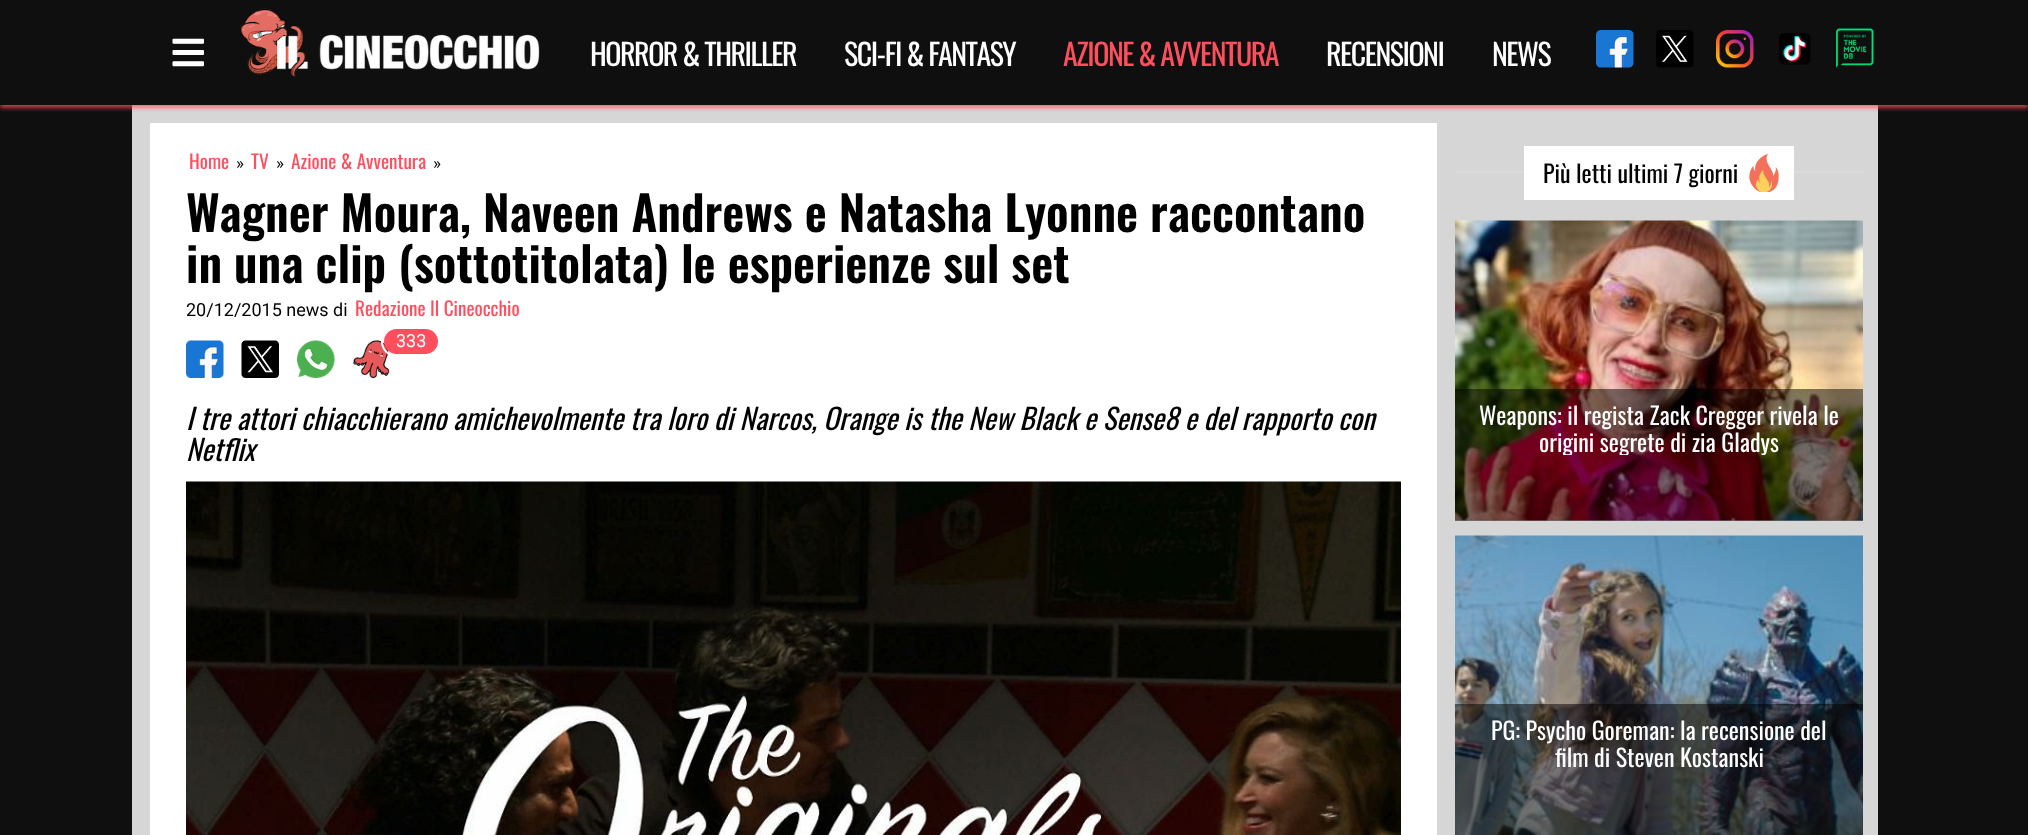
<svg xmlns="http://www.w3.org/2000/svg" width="2028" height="835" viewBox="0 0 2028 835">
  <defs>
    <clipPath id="clip1"><rect x="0" y="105" width="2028" height="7"/></clipPath>
    <filter id="blur1" x="-50%" y="-200%" width="200%" height="500%"><feGaussianBlur stdDeviation="2"/></filter>
    <clipPath id="clip2"><rect x="1479" y="401" width="360" height="54"/></clipPath>
  </defs>
  <rect width="100%" height="100%" fill="#0f0f0f"/>
  <rect x="132" y="105" width="1746" height="730" fill="#d6d6d6"/>
  <g clip-path="url(#clip1)">
    <rect x="0" y="3" width="2028" height="105" fill="#ff4f5f" fill-opacity="0.75" filter="url(#blur1)"/>
  </g>
  <image x="172" y="38" width="32" height="29" href="img1.png"/>
  <image x="239" y="8" width="301" height="70" href="img2.png"/>
  <text x="590" y="66" font-family="Oswald" font-size="30" letter-spacing="-1.5" fill="#ffffff">HORROR &amp; THRILLER</text>
  <text x="844" y="66" font-family="Oswald" font-size="30" letter-spacing="-1.5" fill="#ffffff">SCI-FI &amp; FANTASY</text>
  <text x="1063" y="66" font-family="Oswald" font-size="30" letter-spacing="-1.5" fill="#ff4f5f">AZIONE &amp; AVVENTURA</text>
  <text x="1326" y="66" font-family="Oswald" font-size="30" letter-spacing="-1.5" fill="#ffffff">RECENSIONI</text>
  <text x="1492" y="66" font-family="Oswald" font-size="30" letter-spacing="-1.5" fill="#ffffff">NEWS</text>
  <image x="1596" y="30" width="38" height="38" href="img3.png"/>
  <image x="1656" y="30" width="38" height="38" href="img4.png"/>
  <image x="1716" y="30" width="38" height="38" href="img5.png"/>
  <image x="1779" y="33" width="32" height="32" href="img6.png"/>
  <image x="1836" y="28" width="38" height="40" href="img7.png"/>
  <rect x="150" y="123" width="1287" height="712" fill="#ffffff"/>
  <text x="189" y="169" font-family="Oswald" font-size="19.25" fill="#ff4f5f">Home</text>
  <text x="236" y="169" font-family="Roboto" font-size="17" fill="#000000">»</text>
  <text x="251" y="169" font-family="Oswald" font-size="19.25" fill="#ff4f5f">TV</text>
  <text x="276" y="169" font-family="Roboto" font-size="17" fill="#000000">»</text>
  <text x="291" y="169" font-family="Oswald" font-size="19.25" fill="#ff4f5f">Azione &amp; Avventura</text>
  <text x="433" y="169" font-family="Roboto" font-size="17" fill="#000000">»</text>
  <text x="186" y="232" font-family="Oswald" font-size="48" font-weight="600" fill="#000000">Wagner Moura, Naveen Andrews e Natasha Lyonne raccontano</text>
  <text x="186" y="283" font-family="Oswald" font-size="48" font-weight="600" fill="#000000">in una clip (sottotitolata) le esperienze sul set</text>
  <text x="186" y="316" font-family="Roboto" font-size="18" fill="#000000">20/12/2015 news di</text>
  <text x="355" y="316" font-family="Oswald" font-size="19.25" fill="#ff4f5f">Redazione Il Cineocchio</text>
  <image x="186" y="340" width="38" height="38" href="img8.png"/>
  <image x="241" y="340" width="38" height="38" href="img9.png"/>
  <image x="297" y="340" width="38" height="38" href="img10.png"/>
  <image x="353" y="340" width="37" height="38" href="img11.png"/>
  <rect x="382" y="327" width="58" height="29" rx="14.5" fill="none" stroke="#ffffff" stroke-width="2"/>
  <rect x="384" y="329" width="54" height="25" rx="12.5" fill="#ff4f5f"/>
  <text x="396" y="347" font-family="Roboto" font-size="18" fill="#ffffff">333</text>
  <text x="186" y="430" font-family="Oswald" font-size="28.8" font-style="italic" fill="#000000">I tre attori chiacchierano amichevolmente tra loro di Narcos, Orange is the New Black e Sense8 e del rapporto con</text>
  <text x="186" y="461" font-family="Oswald" font-size="28.8" font-style="italic" fill="#000000">Netflix</text>
  <image x="186" y="481" width="1215" height="354" href="img12.png"/>
  <rect x="1455" y="171" width="408" height="2" fill="#dbdbdb"/>
  <rect x="1524" y="146" width="270" height="54" fill="#ffffff"/>
  <image x="1749" y="153" width="30" height="39" href="img13.png"/>
  <text x="1543" y="183" font-family="Oswald" font-size="24" fill="#000000">Più letti ultimi 7 giorni</text>
  <rect x="1455" y="520" width="408" height="1" fill="#ffffff"/>
  <image x="1455" y="220" width="408" height="301" href="img14.png"/>
  <rect x="1455" y="389" width="408" height="132" fill="#000000" fill-opacity="0.5"/>
  <text x="1479" y="425" font-family="Oswald" font-size="24" fill="#ffffff">Weapons: il regista Zack Cregger rivela le</text>
  <g clip-path="url(#clip2)">
    <text x="1539" y="452" font-family="Oswald" font-size="24" fill="#ffffff">origini segrete di zia Gladys</text>
  </g>
  <image x="1455" y="535" width="408" height="300" href="img15.png"/>
  <rect x="1455" y="704" width="408" height="131" fill="#000000" fill-opacity="0.5"/>
  <text x="1491" y="740" font-family="Oswald" font-size="24" fill="#ffffff">PG: Psycho Goreman: la recensione del</text>
  <text x="1555" y="767" font-family="Oswald" font-size="24" fill="#ffffff">film di Steven Kostanski</text>
</svg>
